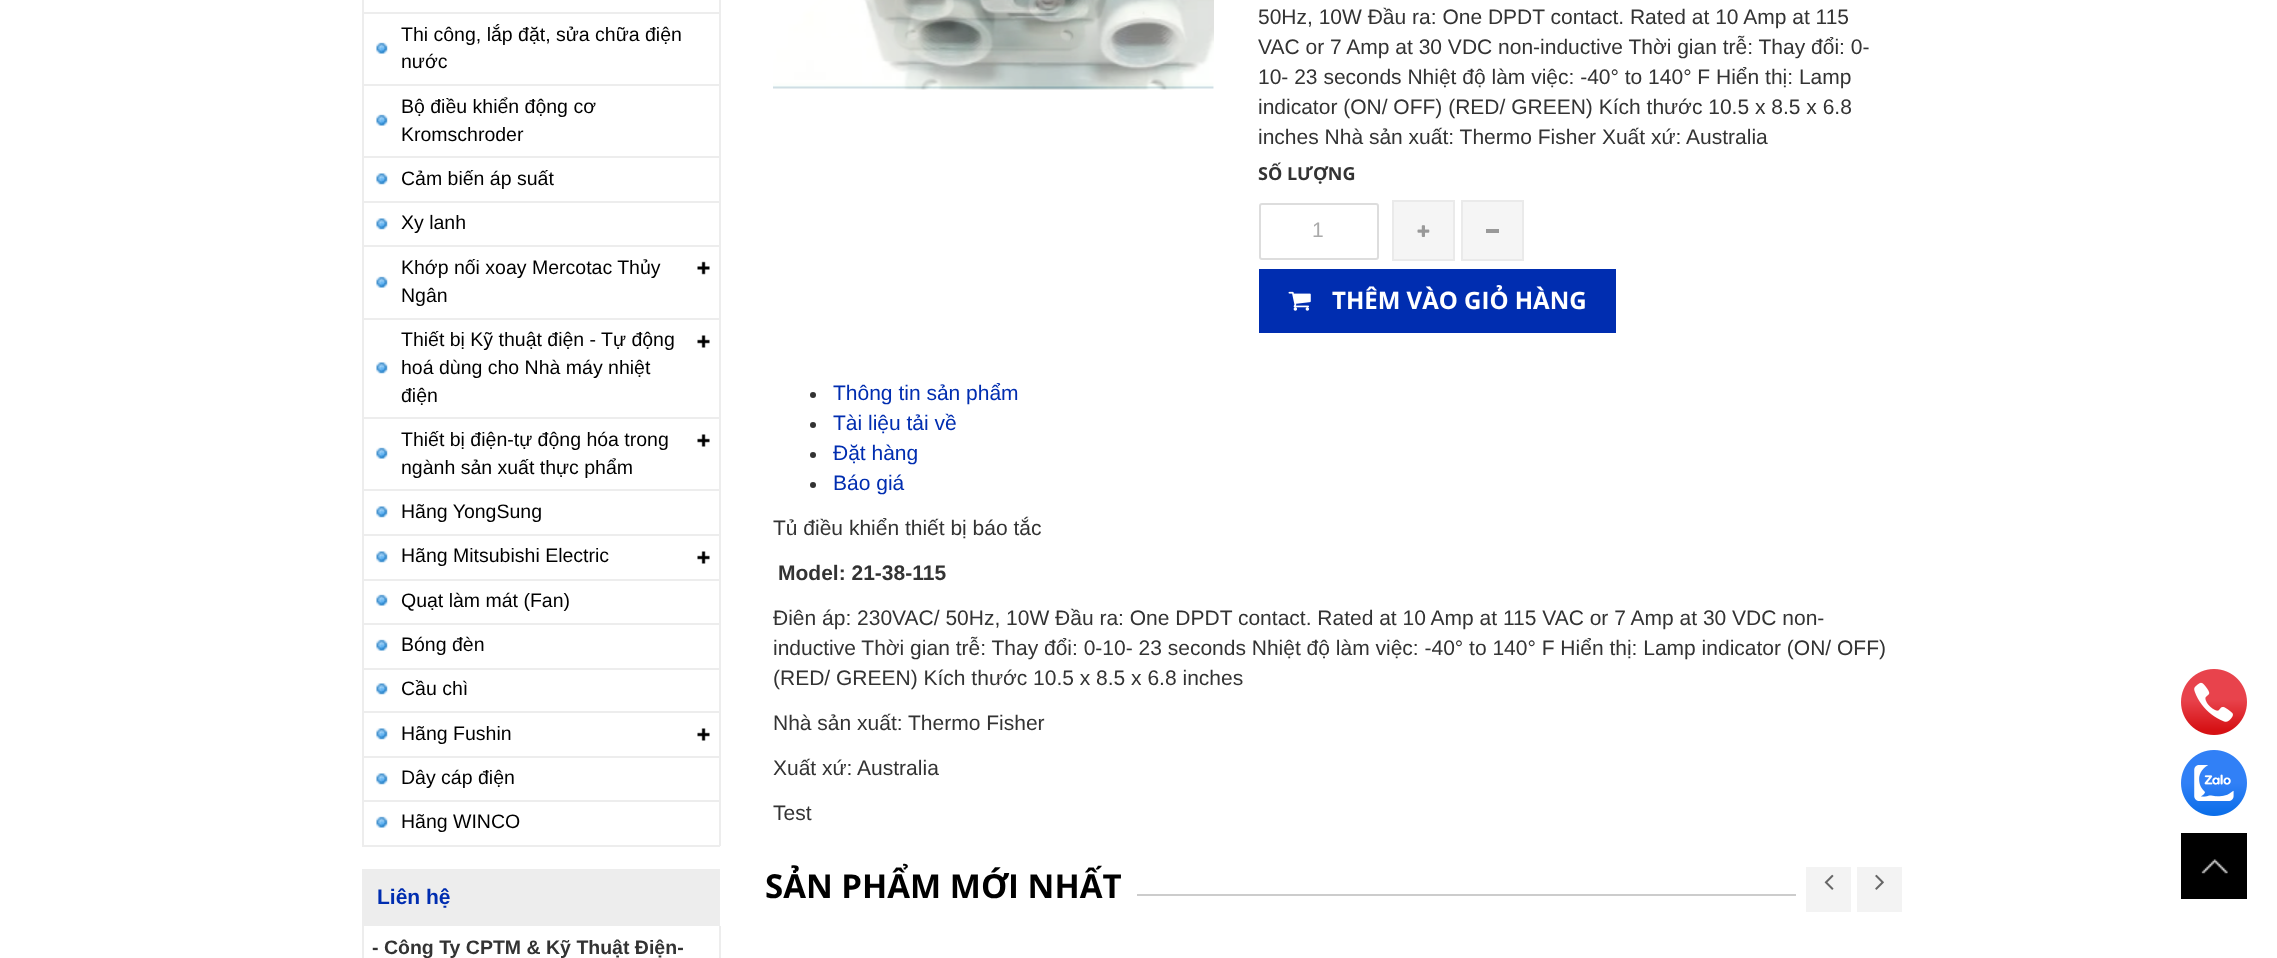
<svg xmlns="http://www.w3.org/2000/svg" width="2277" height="958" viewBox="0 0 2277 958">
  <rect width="100%" height="100%" fill="#ffffff"/>
  <rect x="719" y="0" width="2" height="846" fill="#ededed"/>
  <rect x="362" y="845" width="358" height="2" fill="#ededed"/>
  <rect x="362" y="0" width="2" height="846" fill="#ededed"/>
  <rect x="363" y="12" width="356" height="2" fill="#ededed"/>
  <rect x="363" y="84" width="356" height="2" fill="#ededed"/>
  <image x="376" y="42" width="12" height="12" href="img1.png"/>
  <text x="401" y="41" font-family="Liberation Sans" font-size="19.5" fill="#000000">Thi công, lắp đặt, sửa chữa điện</text>
  <text x="401" y="68" font-family="Liberation Sans" font-size="19.5" fill="#000000">nước</text>
  <rect x="363" y="156" width="356" height="2" fill="#ededed"/>
  <image x="376" y="114" width="12" height="12" href="img1.png"/>
  <text x="401" y="113" font-family="Liberation Sans" font-size="19.5" fill="#000000">Bộ điều khiển động cơ</text>
  <text x="401" y="141" font-family="Liberation Sans" font-size="19.5" fill="#000000">Kromschroder</text>
  <rect x="363" y="201" width="356" height="2" fill="#ededed"/>
  <image x="376" y="173" width="12" height="12" href="img2.png"/>
  <text x="401" y="185" font-family="Liberation Sans" font-size="19.5" fill="#000000">Cảm biến áp suất</text>
  <rect x="363" y="245" width="356" height="2" fill="#ededed"/>
  <image x="376" y="218" width="12" height="12" href="img2.png"/>
  <text x="401" y="229" font-family="Liberation Sans" font-size="19.5" fill="#000000">Xy lanh</text>
  <rect x="363" y="318" width="356" height="2" fill="#ededed"/>
  <image x="376" y="276" width="12" height="12" href="img1.png"/>
  <text x="401" y="274" font-family="Liberation Sans" font-size="19.5" fill="#000000">Khớp nối xoay Mercotac Thủy</text>
  <text x="401" y="302" font-family="Liberation Sans" font-size="19.5" fill="#000000">Ngân</text>
  <image x="697" y="261" width="13" height="14" href="img3.png"/>
  <rect x="363" y="417" width="356" height="2" fill="#ededed"/>
  <image x="376" y="362" width="12" height="12" href="img2.png"/>
  <text x="401" y="346" font-family="Liberation Sans" font-size="19.5" fill="#000000">Thiết bị Kỹ thuật điện -</text>
  <text x="601" y="346" font-family="Liberation Sans" font-size="19.5" fill="#000000">Tự động</text>
  <text x="401" y="374" font-family="Liberation Sans" font-size="19.5" fill="#000000">hoá dùng cho Nhà máy nhiệt</text>
  <text x="401" y="402" font-family="Liberation Sans" font-size="19.5" fill="#000000">điện</text>
  <image x="697" y="335" width="13" height="13" href="img4.png"/>
  <rect x="363" y="489" width="356" height="2" fill="#ededed"/>
  <image x="376" y="447" width="12" height="12" href="img1.png"/>
  <text x="401" y="446" font-family="Liberation Sans" font-size="19.5" fill="#000000">Thiết bị điện-tự động hóa trong</text>
  <text x="401" y="474" font-family="Liberation Sans" font-size="19.5" fill="#000000">ngành sản xuất thực phẩm</text>
  <image x="697" y="434" width="13" height="13" href="img4.png"/>
  <rect x="363" y="534" width="356" height="2" fill="#ededed"/>
  <image x="376" y="506" width="12" height="12" href="img2.png"/>
  <text x="401" y="518" font-family="Liberation Sans" font-size="19.5" fill="#000000">Hãng YongSung</text>
  <rect x="363" y="579" width="356" height="2" fill="#ededed"/>
  <image x="376" y="551" width="12" height="12" href="img2.png"/>
  <text x="401" y="562" font-family="Liberation Sans" font-size="19.5" fill="#000000">Hãng Mitsubishi Electric</text>
  <image x="697" y="551" width="13" height="13" href="img4.png"/>
  <rect x="363" y="623" width="356" height="2" fill="#ededed"/>
  <image x="376" y="594" width="12" height="12" href="img1.png"/>
  <text x="401" y="607" font-family="Liberation Sans" font-size="19.5" fill="#000000">Quạt làm mát (Fan)</text>
  <rect x="363" y="668" width="356" height="2" fill="#ededed"/>
  <image x="376" y="639" width="12" height="12" href="img1.png"/>
  <text x="401" y="651" font-family="Liberation Sans" font-size="19.5" fill="#000000">Bóng đèn</text>
  <rect x="363" y="711" width="356" height="2" fill="#ededed"/>
  <image x="376" y="683" width="12" height="12" href="img2.png"/>
  <text x="401" y="695" font-family="Liberation Sans" font-size="19.5" fill="#000000">Cầu chì</text>
  <rect x="363" y="756" width="356" height="2" fill="#ededed"/>
  <image x="376" y="728" width="12" height="12" href="img2.png"/>
  <text x="401" y="740" font-family="Liberation Sans" font-size="19.5" fill="#000000">Hãng Fushin</text>
  <image x="697" y="728" width="13" height="13" href="img4.png"/>
  <rect x="363" y="800" width="356" height="2" fill="#ededed"/>
  <image x="376" y="773" width="12" height="12" href="img2.png"/>
  <text x="401" y="784" font-family="Liberation Sans" font-size="19.5" fill="#000000">Dây cáp điện</text>
  <image x="376" y="816" width="12" height="12" href="img1.png"/>
  <text x="401" y="828" font-family="Liberation Sans" font-size="19.5" fill="#000000">Hãng WINCO</text>
  <rect x="362" y="869" width="358" height="57" fill="#ededed"/>
  <text x="377" y="904" font-family="Liberation Sans" font-size="21" font-weight="bold" fill="#002db0">Liên hệ</text>
  <rect x="719" y="926" width="2" height="32" fill="#ededed"/>
  <rect x="362" y="926" width="2" height="32" fill="#ededed"/>
  <text x="372" y="954" font-family="Liberation Sans" font-size="19.5" font-weight="bold" fill="#333333">- Công Ty CPTM &amp; Kỹ Thuật Điện-</text>
  <image x="773" y="0" width="441" height="89" href="img5.png"/>
  <image x="773" y="0" width="441" height="90" href="img6.png"/>
  <text x="1258" y="24" font-family="Liberation Sans" font-size="21" fill="#333333">50Hz, 10W Đầu ra: One DPDT contact. Rated at 10 Amp at 115</text>
  <text x="1258" y="54" font-family="Liberation Sans" font-size="21" fill="#333333">VAC or 7 Amp at 30 VDC non-inductive Thời gian trễ: Thay đổi: 0-</text>
  <text x="1258" y="84" font-family="Liberation Sans" font-size="21" fill="#333333">10- 23 seconds Nhiệt độ làm việc: -40° to 140° F Hiển thị: Lamp</text>
  <text x="1258" y="114" font-family="Liberation Sans" font-size="21" fill="#333333">indicator (ON/ OFF) (RED/ GREEN) Kích thước 10.5 x 8.5 x 6.8</text>
  <text x="1258" y="144" font-family="Liberation Sans" font-size="21" fill="#333333">inches Nhà sản xuất: Thermo Fisher Xuất xứ: Australia</text>
  <text x="1258" y="180" font-family="Open Sans" font-size="18" font-weight="bold" fill="#333333">SỐ LƯỢNG</text>
  <rect x="1260" y="204" width="118" height="55" rx="2" fill="none" stroke="#dddddd" stroke-width="2"/>
  <text x="1312" y="237" font-family="Liberation Sans" font-size="21" fill="#aaaaaa">1</text>
  <rect x="1393" y="201" width="61" height="59" fill="#f5f5f5" stroke="#eaeaea" stroke-width="2"/>
  <image x="1417" y="225" width="13" height="12" href="img7.png"/>
  <rect x="1462" y="201" width="61" height="59" fill="#f5f5f5" stroke="#eaeaea" stroke-width="2"/>
  <rect x="1486" y="229" width="13" height="4" fill="#999999"/>
  <rect x="1259" y="269" width="357" height="64" fill="#002db0"/>
  <image x="1288" y="291" width="23" height="20" href="img8.png"/>
  <text x="1332" y="309" font-family="Open Sans" font-size="24" font-weight="bold" fill="#ffffff">THÊM VÀO GIỎ HÀNG</text>
  <circle cx="813" cy="395" r="3" fill="#333333"/>
  <text x="833" y="400" font-family="Liberation Sans" font-size="21" fill="#002db0">Thông tin sản phẩm</text>
  <circle cx="813" cy="425" r="3" fill="#333333"/>
  <text x="833" y="430" font-family="Liberation Sans" font-size="21" fill="#002db0">Tài liệu tải về</text>
  <circle cx="813" cy="455" r="3" fill="#333333"/>
  <text x="833" y="460" font-family="Liberation Sans" font-size="21" fill="#002db0">Đặt hàng</text>
  <circle cx="813" cy="485" r="3" fill="#333333"/>
  <text x="833" y="490" font-family="Liberation Sans" font-size="21" fill="#002db0">Báo giá</text>
  <text x="773" y="535" font-family="Liberation Sans" font-size="21" fill="#333333">Tủ điều khiển thiết bị báo tắc</text>
  <text x="778" y="580" font-family="Liberation Sans" font-size="21" font-weight="bold" fill="#333333">Model: 21-38-115</text>
  <text x="773" y="625" font-family="Liberation Sans" font-size="21" fill="#333333">Điên áp: 230VAC/ 50Hz, 10W Đầu ra: One DPDT contact. Rated at 10 Amp at 115 VAC or 7 Amp at 30 VDC non-</text>
  <text x="773" y="655" font-family="Liberation Sans" font-size="21" fill="#333333">inductive Thời gian trễ: Thay đổi: 0-10- 23 seconds Nhiệt độ làm việc: -40° to 140° F Hiển thị: Lamp indicator (ON/ OFF)</text>
  <text x="773" y="685" font-family="Liberation Sans" font-size="21" fill="#333333">(RED/ GREEN) Kích thước 10.5 x 8.5 x 6.8 inches</text>
  <text x="773" y="730" font-family="Liberation Sans" font-size="21" fill="#333333">Nhà sản xuất: Thermo Fisher</text>
  <text x="773" y="775" font-family="Liberation Sans" font-size="21" fill="#333333">Xuất xứ: Australia</text>
  <text x="773" y="820" font-family="Liberation Sans" font-size="21" fill="#333333">Test</text>
  <rect x="1137" y="894" width="659" height="2" fill="#cccccc"/>
  <text x="765" y="898" font-family="Open Sans" font-size="33" font-weight="bold" fill="#000000">SẢN PHẨM MỚI NHẤT</text>
  <rect x="1806" y="867" width="45" height="45" fill="#f3f3f3"/>
  <image x="1824" y="874" width="10" height="16" href="img9.png"/>
  <rect x="1857" y="867" width="45" height="45" fill="#f3f3f3"/>
  <image x="1875" y="874" width="9" height="16" href="img10.png"/>
  <image x="2181" y="669" width="66" height="66" href="img11.png"/>
  <image x="2181" y="750" width="66" height="66" href="img12.png"/>
  <rect x="2181" y="833" width="66" height="66" fill="#000000"/>
  <image x="2201" y="859" width="27" height="15" href="img13.png"/>
</svg>
